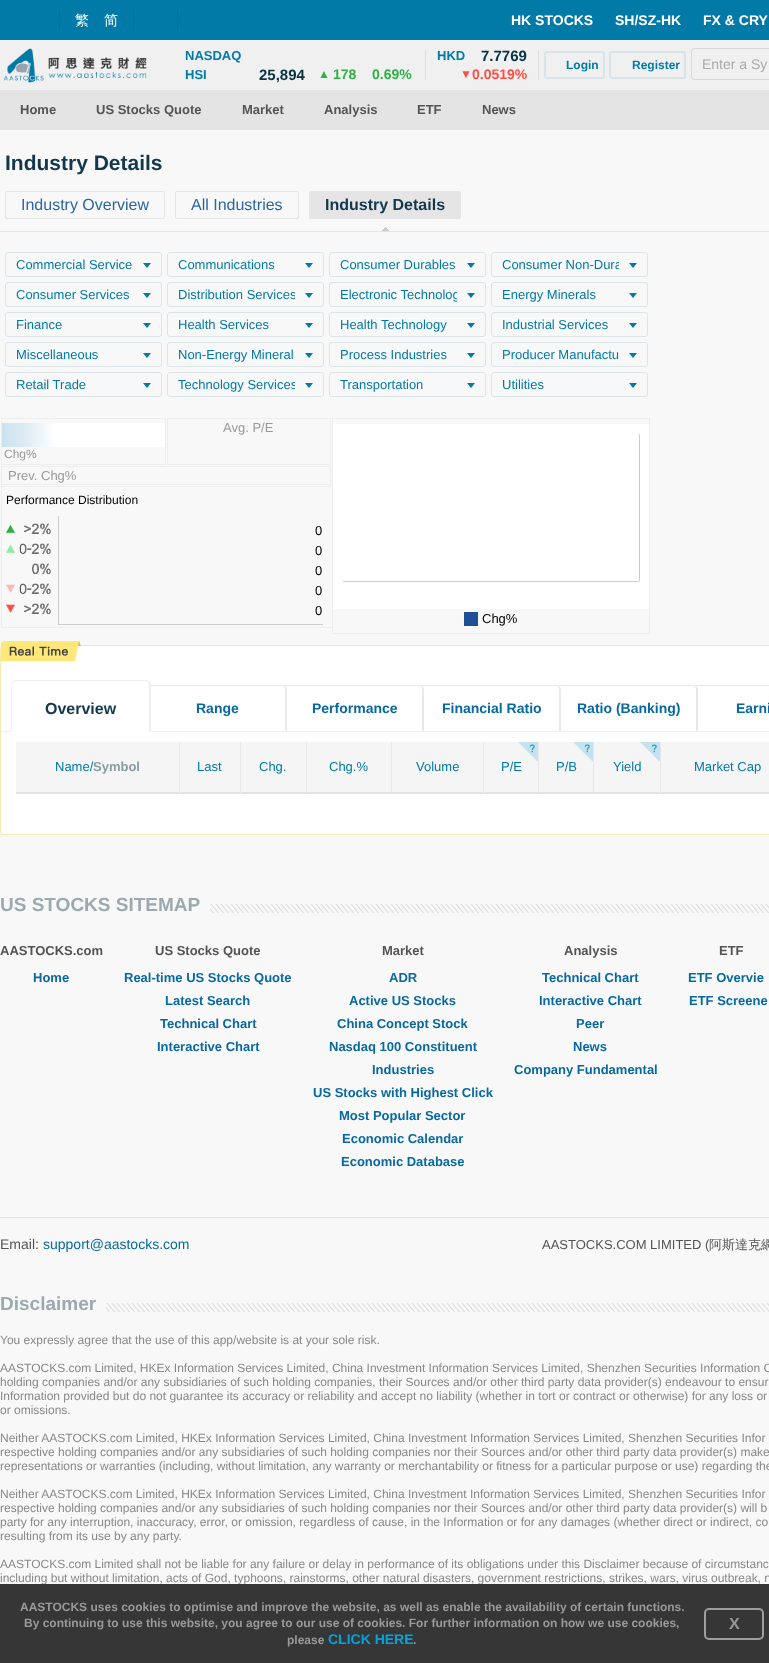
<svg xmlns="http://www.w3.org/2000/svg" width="769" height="1663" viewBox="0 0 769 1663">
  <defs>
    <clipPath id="clip1"><rect x="502" y="253" width="117" height="23"/></clipPath>
    <clipPath id="clip2"><rect x="178" y="283" width="117" height="23"/></clipPath>
    <clipPath id="clip3"><rect x="340" y="283" width="117" height="23"/></clipPath>
    <clipPath id="clip4"><rect x="178" y="373" width="117" height="23"/></clipPath>
    <linearGradient id="g1" gradientUnits="userSpaceOnUse" x1="2" y1="435" x2="165" y2="435"><stop offset="0" stop-color="#c9e2ef"/><stop offset="0.15" stop-color="#dfecf3"/><stop offset="0.33" stop-color="#ffffff"/></linearGradient>
  </defs>
  <rect width="100%" height="100%" fill="#f8f8f8"/>
  <rect x="0" y="40" width="769" height="50" fill="#f0f0f0"/>
  <rect x="0" y="0" width="769" height="40" fill="#017aa7"/>
  <rect x="59" y="10" width="1" height="20" fill="#006e97"/>
  <text x="75" y="25" font-family="WenQuanYi Zen Hei" font-size="14" font-weight="500" fill="#ffffff">繁</text>
  <text x="104" y="25" font-family="WenQuanYi Zen Hei" font-size="14" font-weight="500" fill="#ffffff">简</text>
  <rect x="133" y="10" width="1" height="20" fill="#006e97"/>
  <rect x="177" y="10" width="1" height="20" fill="#006e97"/>
  <text x="511" y="25" font-family="Liberation Sans" font-size="14" font-weight="bold" fill="#ffffff">HK STOCKS</text>
  <text x="615" y="25" font-family="Liberation Sans" font-size="14" font-weight="bold" fill="#ffffff">SH/SZ-HK</text>
  <text x="703" y="25" font-family="Liberation Sans" font-size="14" font-weight="bold" fill="#ffffff">FX &amp; CRY</text>
  <image x="3" y="48" width="144" height="35" href="img1.png"/>
  <text x="185" y="60" font-family="Liberation Sans" font-size="13" font-weight="bold" fill="#017aa7">NASDAQ</text>
  <text x="185" y="79" font-family="Liberation Sans" font-size="13" font-weight="bold" fill="#017aa7">HSI</text>
  <text x="259" y="80" font-family="Liberation Sans" font-size="15" font-weight="bold" fill="#083343">25,894</text>
  <text x="318" y="78" font-family="Liberation Sans" font-size="12" font-weight="bold" fill="#2eb244">▲</text>
  <text x="333" y="79" font-family="Liberation Sans" font-size="14" font-weight="bold" fill="#2eb244">178</text>
  <text x="372" y="79" font-family="Liberation Sans" font-size="14" font-weight="bold" fill="#2eb244">0.69%</text>
  <rect x="425" y="50" width="1" height="30" fill="#dfdfdf"/>
  <text x="437" y="60" font-family="Liberation Sans" font-size="13" font-weight="bold" fill="#017aa7">HKD</text>
  <text x="481" y="61" font-family="Liberation Sans" font-size="15" font-weight="bold" fill="#083343">7.7769</text>
  <text x="460" y="78" font-family="Liberation Sans" font-size="12" font-weight="bold" fill="#fe4e44">▼</text>
  <text x="472" y="79" font-family="Liberation Sans" font-size="14" font-weight="bold" fill="#fe4e44">0.0519%</text>
  <rect x="538" y="50" width="1" height="30" fill="#dfdfdf"/>
  <rect x="545" y="52" width="59" height="26" rx="2" fill="none" stroke="#d8e4e9" stroke-width="2"/>
  <text x="566" y="69" font-family="Liberation Sans" font-size="12" font-weight="bold" fill="#017aa7">Login</text>
  <rect x="610" y="52" width="75" height="26" rx="2" fill="none" stroke="#d8e4e9" stroke-width="2"/>
  <text x="632" y="69" font-family="Liberation Sans" font-size="12" font-weight="bold" fill="#017aa7">Register</text>
  <rect x="691.5" y="48.5" width="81" height="31" rx="2.5" fill="none" stroke="#dadada"/>
  <text x="702" y="69" font-family="Liberation Sans" font-size="14" fill="#aaaaaa">Enter a Sy</text>
  <rect x="0" y="90" width="769" height="40" fill="#e4e4e4"/>
  <text x="20" y="114" font-family="Liberation Sans" font-size="13" font-weight="bold" fill="#545454">Home</text>
  <text x="96" y="114" font-family="Liberation Sans" font-size="13" font-weight="bold" fill="#545454">US Stocks Quote</text>
  <text x="242" y="114" font-family="Liberation Sans" font-size="13" font-weight="bold" fill="#545454">Market</text>
  <text x="324" y="114" font-family="Liberation Sans" font-size="13" font-weight="bold" fill="#545454">Analysis</text>
  <text x="417" y="114" font-family="Liberation Sans" font-size="13" font-weight="bold" fill="#545454">ETF</text>
  <text x="482" y="114" font-family="Liberation Sans" font-size="13" font-weight="bold" fill="#545454">News</text>
  <rect x="0" y="231" width="769" height="1" fill="#e5e5e5"/>
  <text x="5" y="170" font-family="Liberation Sans" font-size="21" font-weight="bold" fill="#13384d">Industry Details</text>
  <rect x="5.5" y="191.5" width="159" height="27" rx="1.5" fill="none" stroke="#e5e5e5"/>
  <text x="21" y="210" font-family="Liberation Sans" font-size="16" fill="#2a679e">Industry Overview</text>
  <rect x="175.5" y="191.5" width="123" height="27" rx="1.5" fill="none" stroke="#e5e5e5"/>
  <text x="191" y="210" font-family="Liberation Sans" font-size="16" fill="#2a679e">All Industries</text>
  <rect x="309.5" y="191.5" width="151" height="27" rx="1.5" fill="#e5e5e5" stroke="#e5e5e5"/>
  <text x="325" y="210" font-family="Liberation Sans" font-size="16" font-weight="bold" fill="#13384d">Industry Details</text>
  <image x="382" y="227" width="7" height="4" href="img2.png"/>
  <rect x="5.5" y="252.5" width="156" height="24" rx="2.5" fill="none" stroke="#dbe4e9"/>
  <text x="16" y="269" font-family="Liberation Sans" font-size="13" fill="#017aa7">Commercial Service</text>
  <path d="M143 263H151L147 268Z" fill="#017aa7"/>
  <rect x="167.5" y="252.5" width="156" height="24" rx="2.5" fill="none" stroke="#dbe4e9"/>
  <text x="178" y="269" font-family="Liberation Sans" font-size="13" fill="#017aa7">Communications</text>
  <path d="M305 263H313L309 268Z" fill="#017aa7"/>
  <rect x="329.5" y="252.5" width="156" height="24" rx="2.5" fill="none" stroke="#dbe4e9"/>
  <text x="340" y="269" font-family="Liberation Sans" font-size="13" fill="#017aa7">Consumer Durables</text>
  <path d="M467 263H475L471 268Z" fill="#017aa7"/>
  <rect x="491.5" y="252.5" width="156" height="24" rx="2.5" fill="none" stroke="#dbe4e9"/>
  <g clip-path="url(#clip1)">
    <text x="502" y="269" font-family="Liberation Sans" font-size="13" fill="#017aa7">Consumer Non-Dura</text>
  </g>
  <path d="M629 263H637L633 268Z" fill="#017aa7"/>
  <rect x="5.5" y="282.5" width="156" height="24" rx="2.5" fill="none" stroke="#dbe4e9"/>
  <text x="16" y="299" font-family="Liberation Sans" font-size="13" fill="#017aa7">Consumer Services</text>
  <path d="M143 293H151L147 298Z" fill="#017aa7"/>
  <rect x="167.5" y="282.5" width="156" height="24" rx="2.5" fill="none" stroke="#dbe4e9"/>
  <g clip-path="url(#clip2)">
    <text x="178" y="299" font-family="Liberation Sans" font-size="13" fill="#017aa7">Distribution Services</text>
  </g>
  <path d="M305 293H313L309 298Z" fill="#017aa7"/>
  <rect x="329.5" y="282.5" width="156" height="24" rx="2.5" fill="none" stroke="#dbe4e9"/>
  <g clip-path="url(#clip3)">
    <text x="340" y="299" font-family="Liberation Sans" font-size="13" fill="#017aa7">Electronic Technolog</text>
  </g>
  <path d="M467 293H475L471 298Z" fill="#017aa7"/>
  <rect x="491.5" y="282.5" width="156" height="24" rx="2.5" fill="none" stroke="#dbe4e9"/>
  <text x="502" y="299" font-family="Liberation Sans" font-size="13" fill="#017aa7">Energy Minerals</text>
  <path d="M629 293H637L633 298Z" fill="#017aa7"/>
  <rect x="5.5" y="312.5" width="156" height="24" rx="2.5" fill="none" stroke="#dbe4e9"/>
  <text x="16" y="329" font-family="Liberation Sans" font-size="13" fill="#017aa7">Finance</text>
  <path d="M143 323H151L147 328Z" fill="#017aa7"/>
  <rect x="167.5" y="312.5" width="156" height="24" rx="2.5" fill="none" stroke="#dbe4e9"/>
  <text x="178" y="329" font-family="Liberation Sans" font-size="13" fill="#017aa7">Health Services</text>
  <path d="M305 323H313L309 328Z" fill="#017aa7"/>
  <rect x="329.5" y="312.5" width="156" height="24" rx="2.5" fill="none" stroke="#dbe4e9"/>
  <text x="340" y="329" font-family="Liberation Sans" font-size="13" fill="#017aa7">Health Technology</text>
  <path d="M467 323H475L471 328Z" fill="#017aa7"/>
  <rect x="491.5" y="312.5" width="156" height="24" rx="2.5" fill="none" stroke="#dbe4e9"/>
  <text x="502" y="329" font-family="Liberation Sans" font-size="13" fill="#017aa7">Industrial Services</text>
  <path d="M629 323H637L633 328Z" fill="#017aa7"/>
  <rect x="5.5" y="342.5" width="156" height="24" rx="2.5" fill="none" stroke="#dbe4e9"/>
  <text x="16" y="359" font-family="Liberation Sans" font-size="13" fill="#017aa7">Miscellaneous</text>
  <path d="M143 353H151L147 358Z" fill="#017aa7"/>
  <rect x="167.5" y="342.5" width="156" height="24" rx="2.5" fill="none" stroke="#dbe4e9"/>
  <text x="178" y="359" font-family="Liberation Sans" font-size="13" fill="#017aa7">Non-Energy Mineral</text>
  <path d="M305 353H313L309 358Z" fill="#017aa7"/>
  <rect x="329.5" y="342.5" width="156" height="24" rx="2.5" fill="none" stroke="#dbe4e9"/>
  <text x="340" y="359" font-family="Liberation Sans" font-size="13" fill="#017aa7">Process Industries</text>
  <path d="M467 353H475L471 358Z" fill="#017aa7"/>
  <rect x="491.5" y="342.5" width="156" height="24" rx="2.5" fill="none" stroke="#dbe4e9"/>
  <text x="502" y="359" font-family="Liberation Sans" font-size="13" fill="#017aa7">Producer Manufactu</text>
  <path d="M629 353H637L633 358Z" fill="#017aa7"/>
  <rect x="5.5" y="372.5" width="156" height="24" rx="2.5" fill="none" stroke="#dbe4e9"/>
  <text x="16" y="389" font-family="Liberation Sans" font-size="13" fill="#017aa7">Retail Trade</text>
  <path d="M143 383H151L147 388Z" fill="#017aa7"/>
  <rect x="167.5" y="372.5" width="156" height="24" rx="2.5" fill="none" stroke="#dbe4e9"/>
  <g clip-path="url(#clip4)">
    <text x="178" y="389" font-family="Liberation Sans" font-size="13" fill="#017aa7">Technology Services</text>
  </g>
  <path d="M305 383H313L309 388Z" fill="#017aa7"/>
  <rect x="329.5" y="372.5" width="156" height="24" rx="2.5" fill="none" stroke="#dbe4e9"/>
  <text x="340" y="389" font-family="Liberation Sans" font-size="13" fill="#017aa7">Transportation</text>
  <path d="M467 383H475L471 388Z" fill="#017aa7"/>
  <rect x="491.5" y="372.5" width="156" height="24" rx="2.5" fill="none" stroke="#dbe4e9"/>
  <text x="502" y="389" font-family="Liberation Sans" font-size="13" fill="#017aa7">Utilities</text>
  <path d="M629 383H637L633 388Z" fill="#017aa7"/>
  <rect x="167.5" y="418.5" width="163" height="46" fill="none" stroke="#eeeeee"/>
  <text x="223" y="432" font-family="Liberation Sans" font-size="13" fill="#999999">Avg. P/E</text>
  <rect x="1.5" y="418.5" width="164" height="46" fill="none" stroke="#eeeeee"/>
  <rect x="2" y="423" width="163" height="24" fill="url(#g1)"/>
  <text x="4" y="458" font-family="Liberation Sans" font-size="12" fill="#999999">Chg%</text>
  <rect x="1.5" y="466.5" width="329" height="18" fill="none" stroke="#eeeeee"/>
  <text x="8" y="480" font-family="Liberation Sans" font-size="13" fill="#999999">Prev. Chg%</text>
  <rect x="332" y="418" width="318" height="1" fill="#eeeeee"/>
  <rect x="649" y="418" width="1" height="216" fill="#eeeeee"/>
  <rect x="332" y="633" width="318" height="1" fill="#eeeeee"/>
  <rect x="332" y="418" width="1" height="216" fill="#eeeeee"/>
  <rect x="1" y="486" width="332" height="1" fill="#eeeeee"/>
  <rect x="1" y="627" width="332" height="1" fill="#eeeeee"/>
  <rect x="1" y="486" width="1" height="142" fill="#eeeeee"/>
  <text x="6" y="504" font-family="Liberation Sans" font-size="12" fill="#000000">Performance Distribution</text>
  <rect x="58" y="624" width="265" height="1" fill="#cccccc"/>
  <rect x="58" y="516" width="1" height="109" fill="#cccccc"/>
  <image x="6" y="523" width="45" height="12" href="img3.png"/>
  <text x="315" y="535" font-family="Liberation Sans" font-size="13" fill="#000000">0</text>
  <image x="6" y="543" width="45" height="12" href="img4.png"/>
  <text x="315" y="555" font-family="Liberation Sans" font-size="13" fill="#000000">0</text>
  <image x="32" y="563" width="19" height="12" href="img5.png"/>
  <text x="315" y="575" font-family="Liberation Sans" font-size="13" fill="#000000">0</text>
  <image x="6" y="583" width="45" height="12" href="img6.png"/>
  <text x="315" y="595" font-family="Liberation Sans" font-size="13" fill="#000000">0</text>
  <image x="6" y="603" width="45" height="12" href="img7.png"/>
  <text x="315" y="615" font-family="Liberation Sans" font-size="13" fill="#000000">0</text>
  <rect x="333" y="424" width="316" height="185" fill="#ffffff"/>
  <rect x="639" y="434" width="1" height="147" fill="#c0d0e0"/>
  <rect x="343" y="581" width="296" height="1" fill="#c0d0e0"/>
  <rect x="464" y="612" width="14" height="14" fill="#1f4f95"/>
  <text x="482" y="623" font-family="Liberation Sans" font-size="13" fill="#000000">Chg%</text>
  <rect x="0.5" y="645.5" width="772" height="189" rx="2.5" fill="#ffffff" stroke="#f6eab3"/>
  <image x="1" y="641" width="80" height="20" href="img8.png"/>
  <path d="M695 685L696 686H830L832 687L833 686L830 685Z" fill="#e8e8e8"/>
  <path d="M558 685H693C696 685 698 687 698 690V731H558Z" fill="#ffffff"/>
  <path d="M558 685L559 686H693L695 687L696 686L693 685Z" fill="#e8e8e8"/>
  <path d="M421 685H556C559 685 561 687 561 690V731H421Z" fill="#ffffff"/>
  <path d="M421 685L422 686H556L558 687L559 686L556 685Z" fill="#e8e8e8"/>
  <path d="M284 685H419C422 685 424 687 424 690V731H284Z" fill="#ffffff"/>
  <path d="M284 685L285 686H419L421 687L422 686L419 685Z" fill="#e8e8e8"/>
  <path d="M147 685H282C285 685 287 687 287 690V731H147Z" fill="#ffffff"/>
  <path d="M147 685L148 686H282L284 687L285 686L282 685Z" fill="#e8e8e8"/>
  <path d="M16 680H146C149 680 151 682 151 685V731H11V685C11 682 13 680 16 680Z" fill="#ffffff"/>
  <path d="M16 680H146C149 680 151 682 151 685V731H11V685C11 682 13 680 16 680ZM16 681H146C148 681 149 683 149 685V731H12V685C12 683 14 681 16 681Z" fill="#f0f0f0" fill-rule="evenodd"/>
  <text x="45" y="714" font-family="Liberation Sans" font-size="16" font-weight="bold" fill="#13384d">Overview</text>
  <rect x="1" y="731" width="768" height="1" fill="#f0f0f0"/>
  <rect x="12" y="731" width="137" height="1" fill="#ffffff"/>
  <path d="M285 731H287V690C287 688 286 687 285 686L284 687C285 687 285 689 285 690Z" fill="#e8e8e8"/>
  <text x="196" y="713" font-family="Liberation Sans" font-size="14" font-weight="bold" fill="#0869a1">Range</text>
  <path d="M422 731H424V690C424 688 423 687 422 686L421 687C422 687 422 689 422 690Z" fill="#e8e8e8"/>
  <text x="312" y="713" font-family="Liberation Sans" font-size="14" font-weight="bold" fill="#0869a1">Performance</text>
  <path d="M559 731H561V690C561 688 560 687 559 686L558 687C559 687 559 689 559 690Z" fill="#e8e8e8"/>
  <text x="442" y="713" font-family="Liberation Sans" font-size="14" font-weight="bold" fill="#0869a1">Financial Ratio</text>
  <path d="M696 731H698V690C698 688 697 687 696 686L695 687C696 687 696 689 696 690Z" fill="#e8e8e8"/>
  <text x="577" y="713" font-family="Liberation Sans" font-size="14" font-weight="bold" fill="#0869a1">Ratio (Banking)</text>
  <text x="736" y="713" font-family="Liberation Sans" font-size="14" font-weight="bold" fill="#0869a1">Earni</text>
  <rect x="16" y="792" width="163" height="2" fill="#e3e3e3"/>
  <path d="M179 794V742H180V792Z" fill="#e9e9e9"/>
  <path d="M483 794H390L391 792H483Z" fill="#e3e3e3"/>
  <path d="M483 794V742H484V792ZM538 794V742H539V792Z" fill="#e9e9e9"/>
  <path d="M660 794H592L593 792H660Z" fill="#e3e3e3"/>
  <path d="M660 794V742H661V792Z" fill="#e9e9e9"/>
  <rect x="16" y="742" width="163" height="50" fill="#f5f5f5"/>
  <text x="55" y="771" font-family="Liberation Sans" font-size="13" fill="#017aa7">Name/</text>
  <text x="93" y="771" font-family="Liberation Sans" font-size="13" font-weight="bold" fill="#869ca4">Symbol</text>
  <path d="M240 794H179L180 792H240Z" fill="#e3e3e3"/>
  <rect x="180" y="742" width="60" height="50" fill="#f5f5f5"/>
  <text x="197" y="771" font-family="Liberation Sans" font-size="13" fill="#017aa7">Last</text>
  <path d="M306 794H240L241 792H306Z" fill="#e3e3e3"/>
  <path d="M240 794V742H241V792Z" fill="#e9e9e9"/>
  <rect x="241" y="742" width="65" height="50" fill="#f5f5f5"/>
  <text x="259" y="771" font-family="Liberation Sans" font-size="13" fill="#017aa7">Chg.</text>
  <path d="M391 794H306L307 792H391Z" fill="#e3e3e3"/>
  <path d="M306 794V742H307V792Z" fill="#e9e9e9"/>
  <rect x="307" y="742" width="84" height="50" fill="#f5f5f5"/>
  <text x="329" y="771" font-family="Liberation Sans" font-size="13" fill="#017aa7">Chg.%</text>
  <path d="M391 794V742H392V792Z" fill="#e9e9e9"/>
  <rect x="392" y="742" width="91" height="50" fill="#f5f5f5"/>
  <text x="416" y="771" font-family="Liberation Sans" font-size="13" fill="#017aa7">Volume</text>
  <path d="M538 794H483L484 792H538Z" fill="#e3e3e3"/>
  <rect x="484" y="742" width="54" height="50" fill="#f5f5f5"/>
  <text x="501" y="771" font-family="Liberation Sans" font-size="13" fill="#017aa7">P/E</text>
  <image x="518" y="742" width="20" height="20" href="img9.png"/>
  <path d="M593 794H538L539 792H593Z" fill="#e3e3e3"/>
  <rect x="539" y="742" width="54" height="50" fill="#f5f5f5"/>
  <text x="556" y="771" font-family="Liberation Sans" font-size="13" fill="#017aa7">P/B</text>
  <image x="573" y="742" width="20" height="20" href="img9.png"/>
  <path d="M593 794V742H594V792Z" fill="#e9e9e9"/>
  <rect x="594" y="742" width="66" height="50" fill="#f5f5f5"/>
  <text x="613" y="771" font-family="Liberation Sans" font-size="13" fill="#017aa7">Yield</text>
  <image x="640" y="742" width="20" height="20" href="img10.png"/>
  <path d="M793 794H660L661 792H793Z" fill="#e3e3e3"/>
  <rect x="661" y="742" width="108" height="50" fill="#f5f5f5"/>
  <text x="694" y="771" font-family="Liberation Sans" font-size="13" fill="#017aa7">Market Cap</text>
  <text x="0" y="911" font-family="Liberation Sans" font-size="19" font-weight="bold" fill="#9caaaf">US STOCKS SITEMAP</text>
  <image x="210" y="904" width="559" height="9" href="img11.png"/>
  <text x="0" y="955" font-family="Liberation Sans" font-size="13" font-weight="bold" fill="#545454">AASTOCKS.com</text>
  <text x="33" y="982" font-family="Liberation Sans" font-size="13" font-weight="bold" fill="#0869a1">Home</text>
  <text x="155" y="955" font-family="Liberation Sans" font-size="13" font-weight="bold" fill="#545454">US Stocks Quote</text>
  <text x="124" y="982" font-family="Liberation Sans" font-size="13" font-weight="bold" fill="#0869a1">Real-time US Stocks Quote</text>
  <text x="165" y="1005" font-family="Liberation Sans" font-size="13" font-weight="bold" fill="#0869a1">Latest Search</text>
  <text x="160" y="1028" font-family="Liberation Sans" font-size="13" font-weight="bold" fill="#0869a1">Technical Chart</text>
  <text x="157" y="1051" font-family="Liberation Sans" font-size="13" font-weight="bold" fill="#0869a1">Interactive Chart</text>
  <text x="382" y="955" font-family="Liberation Sans" font-size="13" font-weight="bold" fill="#545454">Market</text>
  <text x="389" y="982" font-family="Liberation Sans" font-size="13" font-weight="bold" fill="#0869a1">ADR</text>
  <text x="349" y="1005" font-family="Liberation Sans" font-size="13" font-weight="bold" fill="#0869a1">Active US Stocks</text>
  <text x="337" y="1028" font-family="Liberation Sans" font-size="13" font-weight="bold" fill="#0869a1">China Concept Stock</text>
  <text x="329" y="1051" font-family="Liberation Sans" font-size="13" font-weight="bold" fill="#0869a1">Nasdaq 100 Constituent</text>
  <text x="372" y="1074" font-family="Liberation Sans" font-size="13" font-weight="bold" fill="#0869a1">Industries</text>
  <text x="313" y="1097" font-family="Liberation Sans" font-size="13" font-weight="bold" fill="#0869a1">US Stocks with Highest Click</text>
  <text x="339" y="1120" font-family="Liberation Sans" font-size="13" font-weight="bold" fill="#0869a1">Most Popular Sector</text>
  <text x="342" y="1143" font-family="Liberation Sans" font-size="13" font-weight="bold" fill="#0869a1">Economic Calendar</text>
  <text x="341" y="1166" font-family="Liberation Sans" font-size="13" font-weight="bold" fill="#0869a1">Economic Database</text>
  <text x="564" y="955" font-family="Liberation Sans" font-size="13" font-weight="bold" fill="#545454">Analysis</text>
  <text x="542" y="982" font-family="Liberation Sans" font-size="13" font-weight="bold" fill="#0869a1">Technical Chart</text>
  <text x="539" y="1005" font-family="Liberation Sans" font-size="13" font-weight="bold" fill="#0869a1">Interactive Chart</text>
  <text x="576" y="1028" font-family="Liberation Sans" font-size="13" font-weight="bold" fill="#0869a1">Peer</text>
  <text x="573" y="1051" font-family="Liberation Sans" font-size="13" font-weight="bold" fill="#0869a1">News</text>
  <text x="514" y="1074" font-family="Liberation Sans" font-size="13" font-weight="bold" fill="#0869a1">Company Fundamental</text>
  <text x="719" y="955" font-family="Liberation Sans" font-size="13" font-weight="bold" fill="#545454">ETF</text>
  <text x="688" y="982" font-family="Liberation Sans" font-size="13" font-weight="bold" fill="#0869a1">ETF Overvie</text>
  <text x="689" y="1005" font-family="Liberation Sans" font-size="13" font-weight="bold" fill="#0869a1">ETF Screene</text>
  <rect x="0" y="1217" width="769" height="1" fill="#e2e2e2"/>
  <text x="0" y="1249" font-family="Liberation Sans" font-size="14" fill="#545454">Email:</text>
  <text x="43" y="1249" font-family="Liberation Sans" font-size="14" fill="#0869a1">support@aastocks.com</text>
  <text x="542" y="1249" font-family="Liberation Sans" font-size="13" fill="#545454">AASTOCKS.COM LIMITED (</text>
  <text x="709" y="1249" font-family="WenQuanYi Zen Hei" font-size="13" font-weight="500" fill="#545454">阿斯達克網</text>
  <text x="0" y="1310" font-family="Liberation Sans" font-size="19" font-weight="bold" fill="#9caaaf">Disclaimer</text>
  <image x="106" y="1303" width="663" height="9" href="img12.png"/>
  <text x="0" y="1344" font-family="Liberation Sans" font-size="12" fill="#888888">You expressly agree that the use of this app/website is at your sole risk.</text>
  <text x="0" y="1372" font-family="Liberation Sans" font-size="12" fill="#888888">AASTOCKS.com Limited, HKEx Information Services Limited, China Investment Information Services Limited, Shenzhen Securities Information C</text>
  <text x="0" y="1386" font-family="Liberation Sans" font-size="12" fill="#888888">holding companies and/or any subsidiaries of such holding companies, their Sources and/or other third party data provider(s) endeavour to ensur</text>
  <text x="0" y="1400" font-family="Liberation Sans" font-size="12" fill="#888888">Information provided but do not guarantee its accuracy or reliability and accept no liability (whether in tort or contract or otherwise) for any loss or</text>
  <text x="0" y="1414" font-family="Liberation Sans" font-size="12" fill="#888888">or omissions.</text>
  <text x="0" y="1442" font-family="Liberation Sans" font-size="12" fill="#888888">Neither AASTOCKS.com Limited, HKEx Information Services Limited, China Investment Information Services Limited, Shenzhen Securities Infor</text>
  <text x="0" y="1456" font-family="Liberation Sans" font-size="12" fill="#888888">respective holding companies and/or any subsidiaries of such holding companies nor their Sources and/or other third party data provider(s) make</text>
  <text x="0" y="1470" font-family="Liberation Sans" font-size="12" fill="#888888">representations or warranties (including, without limitation, any warranty or merchantability or fitness for a particular purpose or use) regarding the</text>
  <text x="0" y="1498" font-family="Liberation Sans" font-size="12" fill="#888888">Neither AASTOCKS.com Limited, HKEx Information Services Limited, China Investment Information Services Limited, Shenzhen Securities Infor</text>
  <text x="0" y="1512" font-family="Liberation Sans" font-size="12" fill="#888888">respective holding companies and/or any subsidiaries of such holding companies nor their Sources and/or other third party data provider(s) will b</text>
  <text x="0" y="1526" font-family="Liberation Sans" font-size="12" fill="#888888">party for any interruption, inaccuracy, error, or omission, regardless of cause, in the Information or for any damages (whether direct or indirect, co</text>
  <text x="0" y="1540" font-family="Liberation Sans" font-size="12" fill="#888888">resulting from its use by any party.</text>
  <text x="0" y="1568" font-family="Liberation Sans" font-size="12" fill="#888888">AASTOCKS.com Limited shall not be liable for any failure or delay in performance of its obligations under this Disclaimer because of circumstanc</text>
  <text x="0" y="1582" font-family="Liberation Sans" font-size="12" fill="#888888">including but without limitation, acts of God, typhoons, rainstorms, other natural disasters, government restrictions, strikes, wars, virus outbreak, n</text>
  <rect x="0" y="1584" width="769" height="79" fill="#363636"/>
  <text x="20" y="1611" font-family="Liberation Sans" font-size="12" font-weight="bold" fill="#999999">AASTOCKS uses cookies to optimise and improve the website, as well as enable the availability of certain functions.</text>
  <text x="24" y="1627" font-family="Liberation Sans" font-size="12" font-weight="bold" fill="#999999">By continuing to use this website, you agree to our use of cookies. For further information on how we use cookies,</text>
  <text x="287" y="1644" font-family="Liberation Sans" font-size="12" font-weight="bold" fill="#999999">please</text>
  <text x="328" y="1644" font-family="Liberation Sans" font-size="14" font-weight="bold" fill="#00a5df">CLICK HERE</text>
  <text x="413" y="1644" font-family="Liberation Sans" font-size="12" font-weight="bold" fill="#999999">.</text>
  <rect x="705" y="1609" width="58" height="30" rx="4" fill="none" stroke="#9e9e9e" stroke-width="2"/>
  <text x="729" y="1629" font-family="Liberation Sans" font-size="16" font-weight="bold" fill="#999999">X</text>
</svg>
